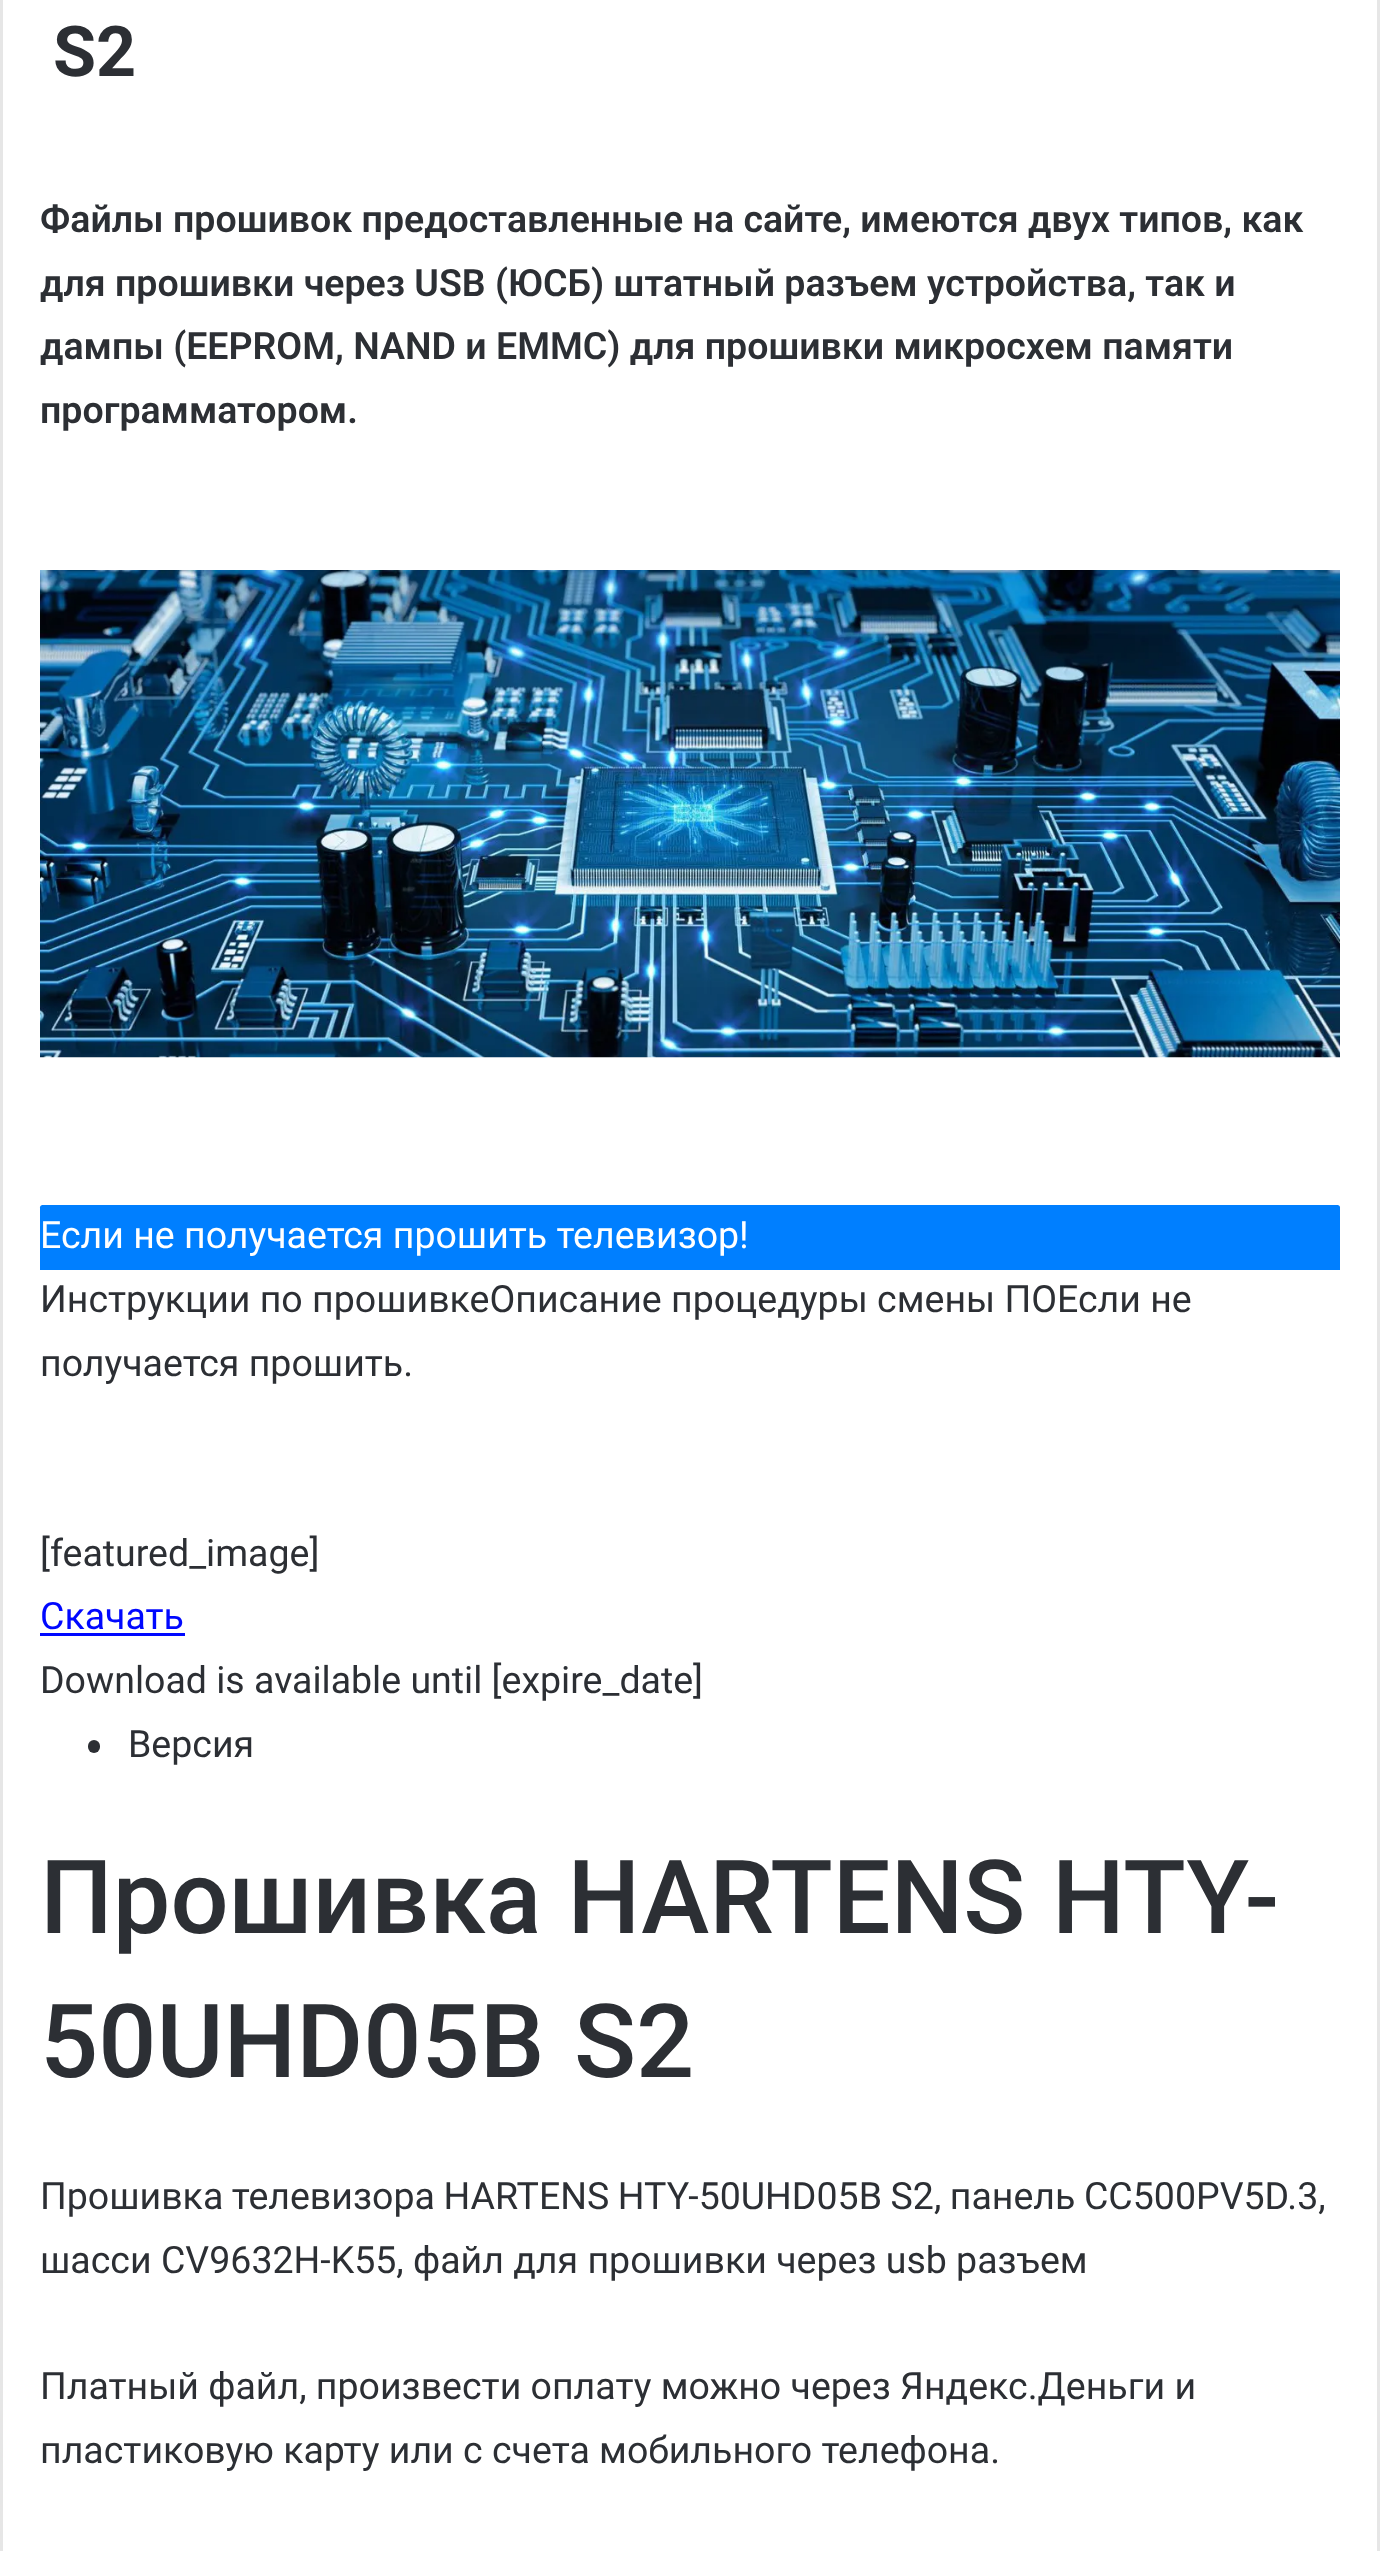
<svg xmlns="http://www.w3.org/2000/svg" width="1380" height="2551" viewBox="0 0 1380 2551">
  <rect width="100%" height="100%" fill="#ffffff"/>
  <rect x="1.5" y="-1.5" width="1377" height="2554" fill="none" stroke="#e6e6e6" stroke-width="3"/>
  <text x="53" y="76" font-family="Roboto" font-size="70" font-weight="bold" fill="#2c2f34">S2</text>
  <text x="40" y="232" font-family="Roboto" font-size="37.5" font-weight="600" fill="#2c2f34">Файлы прошивок предоставленные на сайте, имеются двух типов, как</text>
  <text x="40" y="296" font-family="Roboto" font-size="37.5" font-weight="600" fill="#2c2f34">для прошивки через USB (ЮСБ) штатный разъем устройства, так и</text>
  <text x="40" y="359" font-family="Roboto" font-size="37.5" font-weight="600" fill="#2c2f34">дампы (EEPROM, NAND и EMMC) для прошивки микросхем памяти</text>
  <text x="40" y="423" font-family="Roboto" font-size="37.5" font-weight="600" fill="#2c2f34">программатором.</text>
  <image x="40" y="570" width="1300" height="488" href="img1.png"/>
  <path d="M42.5 1205H1337.5C1339 1205 1340 1206 1340 1207.5V1270H40V1207.5C40 1206 41 1205 42.5 1205Z" fill="#007fff"/>
  <text x="40" y="1248" font-family="Roboto" font-size="37.5" fill="#ffffff">Если не получается прошить телевизор!</text>
  <text x="40" y="1312" font-family="Roboto" font-size="37.5" fill="#2c2f34">Инструкции по прошивкеОписание процедуры смены ПОЕсли не</text>
  <text x="40" y="1376" font-family="Roboto" font-size="37.5" fill="#2c2f34">получается прошить.</text>
  <text x="40" y="1566" font-family="Roboto" font-size="37.5" fill="#2c2f34">[featured_image]</text>
  <text x="40" y="1629" font-family="Roboto" font-size="37.5" fill="#0008ff">Скачать</text>
  <rect x="40" y="1633" width="145" height="3" fill="#0008ff"/>
  <text x="40" y="1693" font-family="Roboto" font-size="37.5" fill="#2c2f34">Download is available until [expire_date]</text>
  <rect x="88" y="1740" width="12" height="13" rx="6" fill="#2c2f34"/>
  <text x="128" y="1757" font-family="Roboto" font-size="37.5" fill="#2c2f34">Версия</text>
  <text x="40" y="1933" word-spacing="1" font-family="Roboto" font-size="102.5" font-weight="500" fill="#2c2f34">Прошивка HARTENS HTY-</text>
  <text x="40" y="2077" word-spacing="4" font-family="Roboto" font-size="102.5" font-weight="500" fill="#2c2f34">50UHD05B S2</text>
  <text x="40" y="2209" word-spacing="-0.75" font-family="Roboto" font-size="37.5" fill="#2c2f34">Прошивка телевизора HARTENS HTY-50UHD05B S2, панель CC500PV5D.3,</text>
  <text x="40" y="2273" font-family="Roboto" font-size="37.5" fill="#2c2f34">шасси CV9632H-K55, файл для прошивки через usb разъем</text>
  <text x="40" y="2399" font-family="Roboto" font-size="37.5" fill="#2c2f34">Платный файл, произвести оплату можно через Яндекс.Деньги и</text>
  <text x="40" y="2463" font-family="Roboto" font-size="37.5" fill="#2c2f34">пластиковую карту или с счета мобильного телефона.</text>
</svg>
